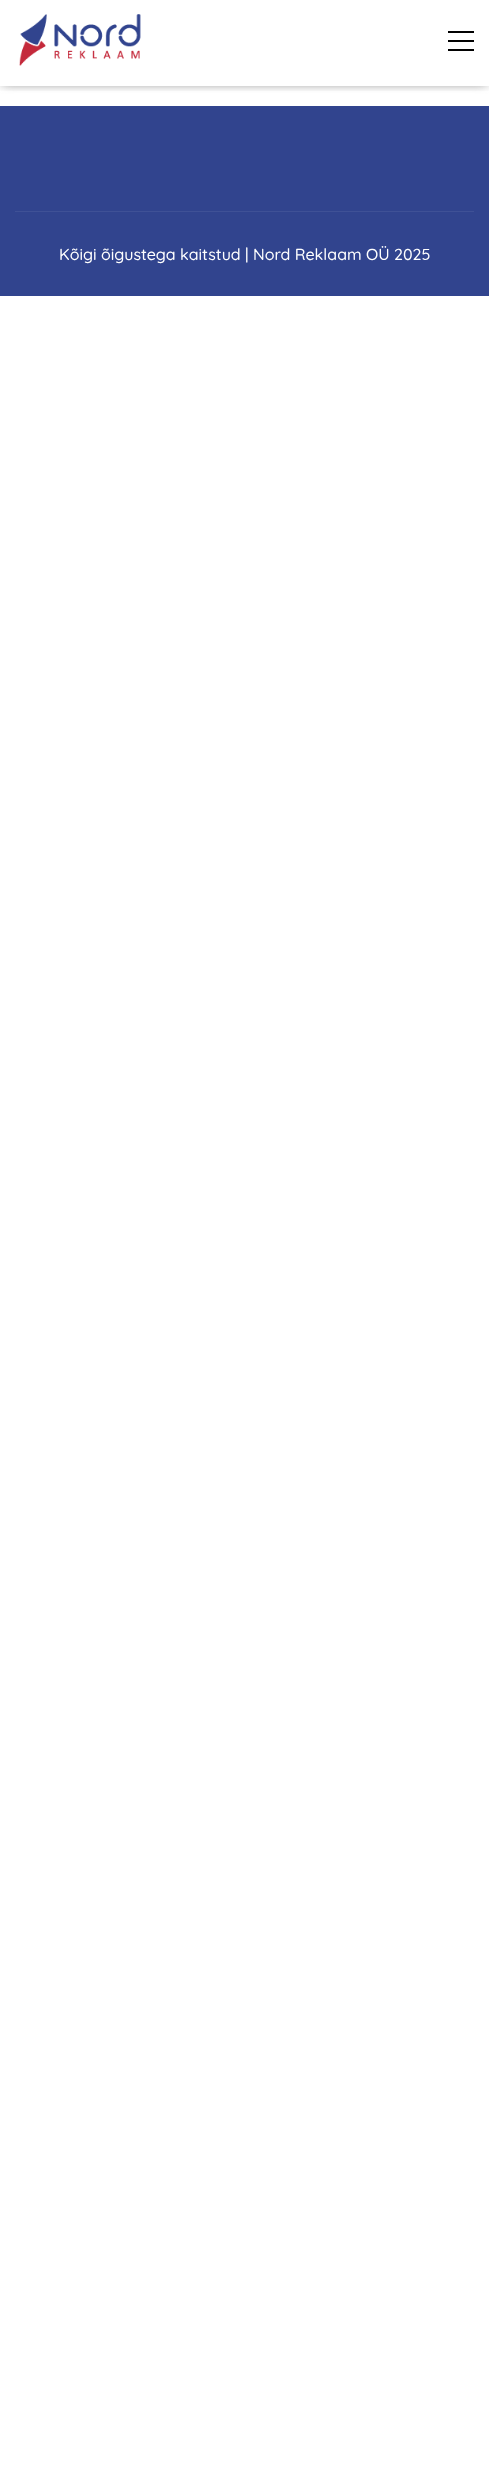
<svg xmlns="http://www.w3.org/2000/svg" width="489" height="2470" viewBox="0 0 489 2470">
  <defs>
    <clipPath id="clip1"><rect x="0" y="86" width="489" height="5"/></clipPath>
    <filter id="blur1" x="-50%" y="-200%" width="200%" height="500%"><feGaussianBlur stdDeviation="4"/></filter>
    <clipPath id="clip2"><rect x="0" y="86" width="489" height="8"/></clipPath>
    <filter id="blur2" x="-50%" y="-200%" width="200%" height="500%"><feGaussianBlur stdDeviation="5"/></filter>
  </defs>
  <rect width="100%" height="100%" fill="#ffffff"/>
  <g clip-path="url(#clip1)">
    <rect x="0" y="0" width="489" height="86" fill="#000000" fill-opacity="0.2" filter="url(#blur1)"/>
  </g>
  <g clip-path="url(#clip2)">
    <rect x="6" y="10" width="477" height="74" fill="#b3b3b3" filter="url(#blur2)"/>
  </g>
  <image x="19" y="14" width="122" height="52" href="img1.png"/>
  <rect x="448" y="31" width="26" height="2" fill="#010101"/>
  <rect x="448" y="40" width="26" height="2" fill="#010101"/>
  <rect x="448" y="49" width="26" height="2" fill="#010101"/>
  <rect x="0" y="106" width="489" height="190" fill="#31448e"/>
  <rect x="15" y="211" width="459" height="1" fill="#3f5196"/>
  <text x="59" y="260" font-family="Quicksand" font-size="16" font-weight="500" fill="#ffffff">Kõigi õigustega kaitstud | Nord Reklaam OÜ 2025</text>
</svg>
